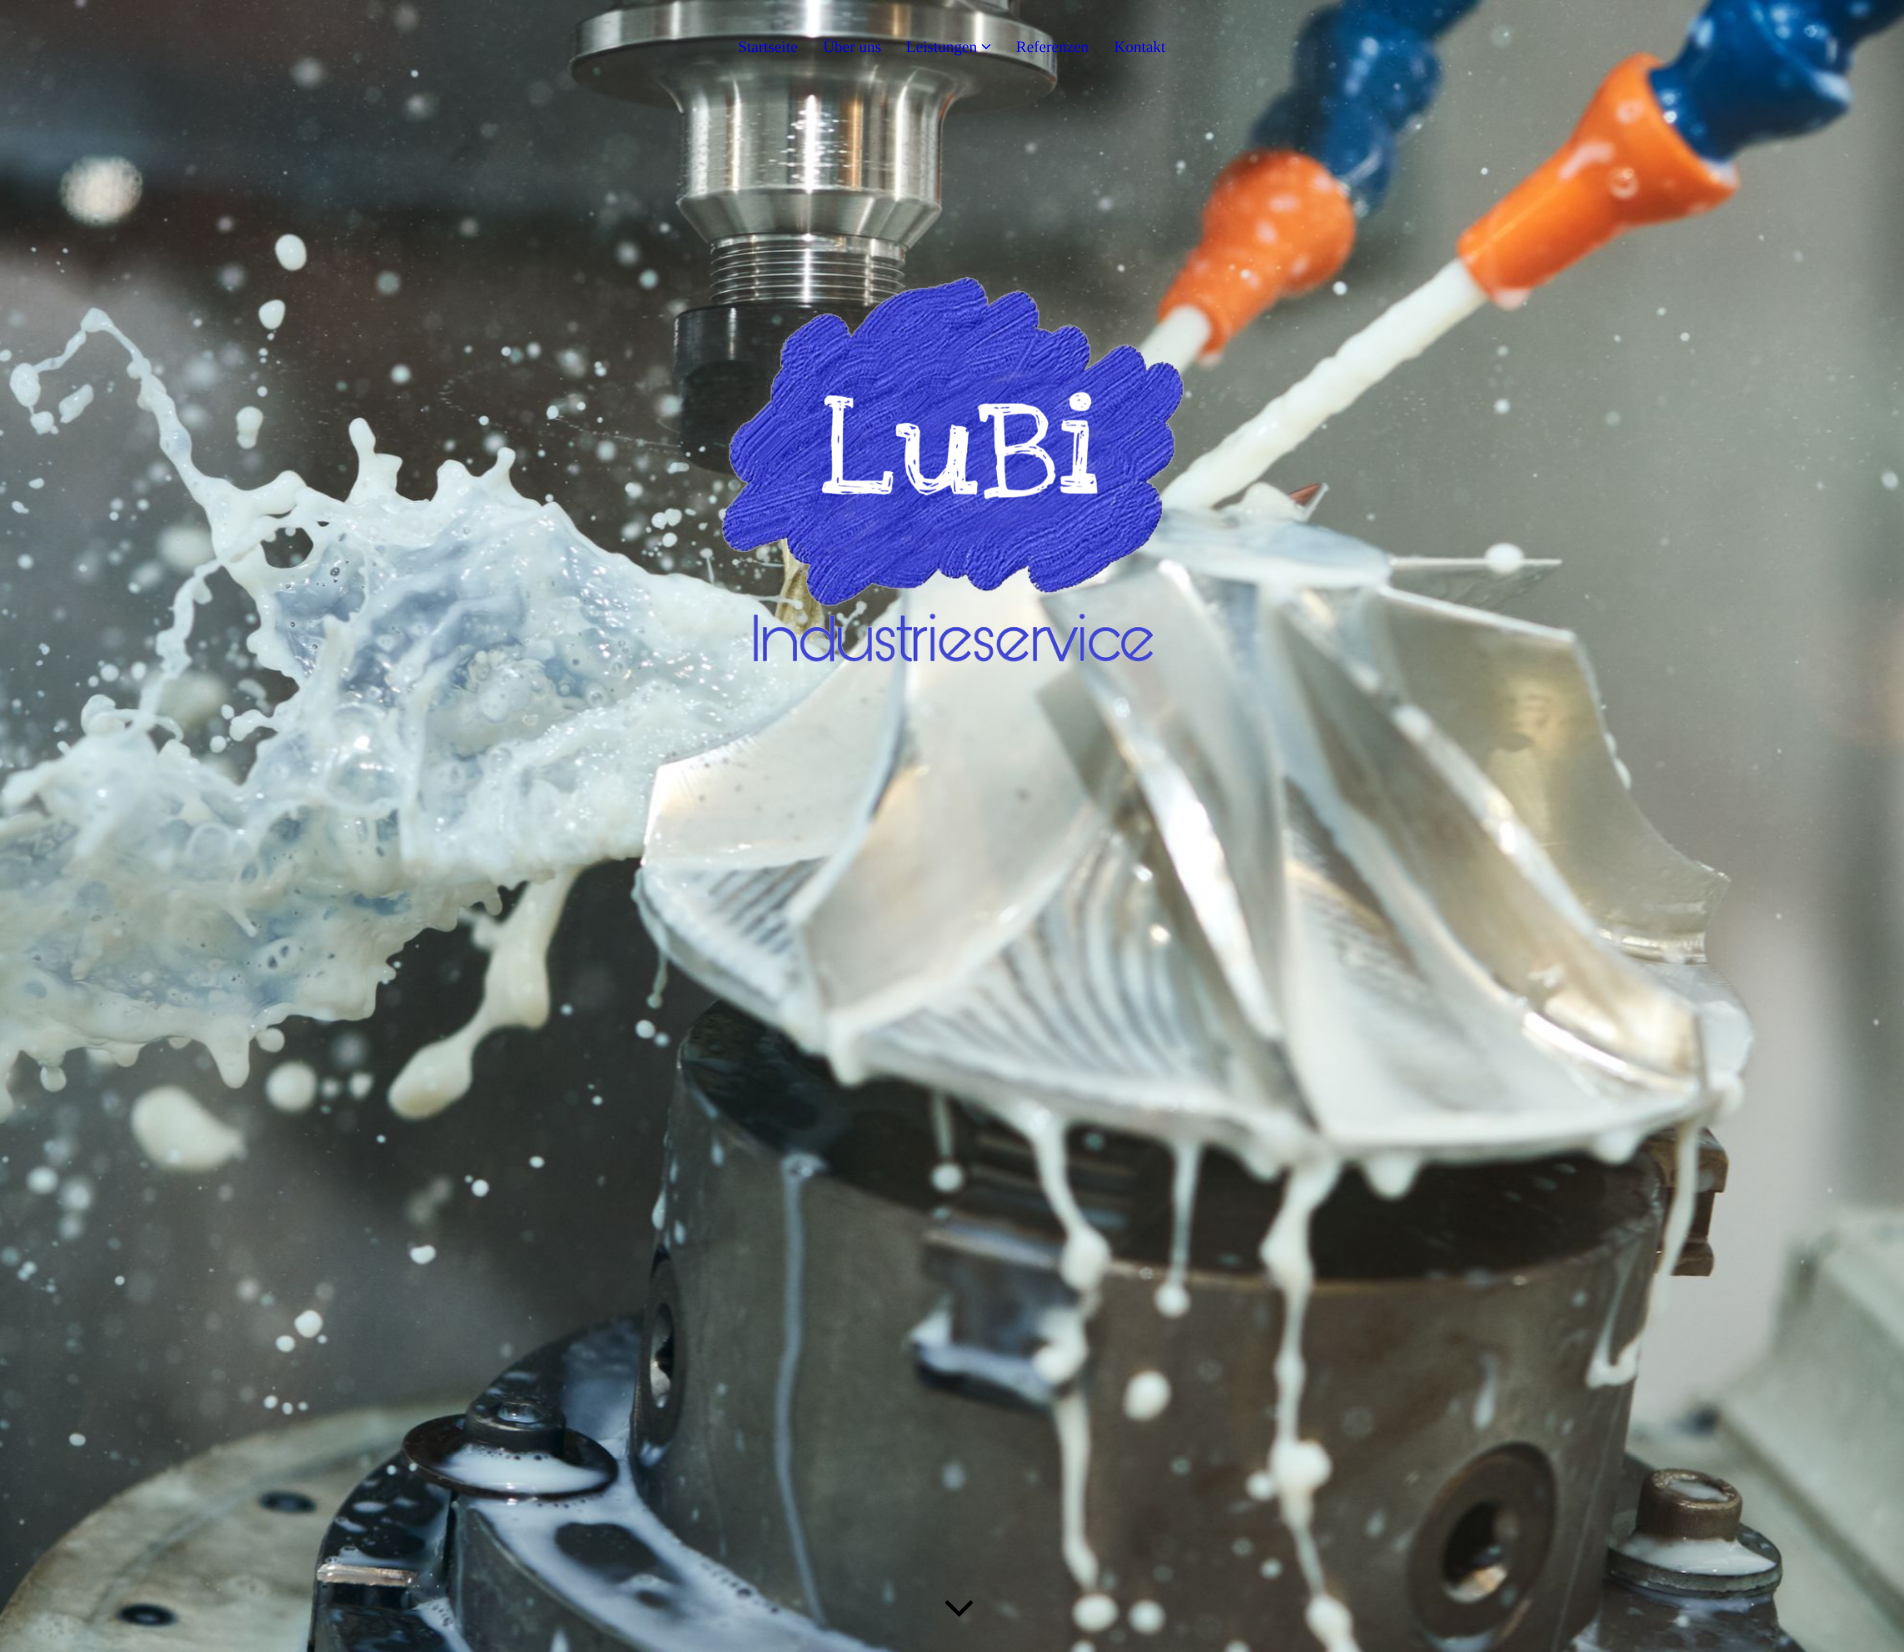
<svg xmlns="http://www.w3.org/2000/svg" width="1904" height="1652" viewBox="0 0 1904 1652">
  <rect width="100%" height="100%" fill="#ffffff"/>
  <image x="0" y="0" width="1904" height="1652" href="img1.png"/>
  <image x="713" y="272" width="477" height="390" href="img2.png"/>
  <image x="945" y="1600" width="28" height="17" href="img3.png"/>
  <text x="738" y="52" font-family="Liberation Serif" font-size="16" fill="#0000ee">Startseite</text>
  <text x="823" y="52" font-family="Liberation Serif" font-size="16" fill="#0000ee">Über uns</text>
  <text x="906" y="52" font-family="Liberation Serif" font-size="16" fill="#0000ee">Leistungen</text>
  <image x="981" y="44" width="10" height="6" href="img4.png"/>
  <text x="1016" y="52" font-family="Liberation Serif" font-size="16" fill="#0000ee">Referenzen</text>
  <text x="1114" y="52" font-family="Liberation Serif" font-size="16" fill="#0000ee">Kontakt</text>
</svg>
